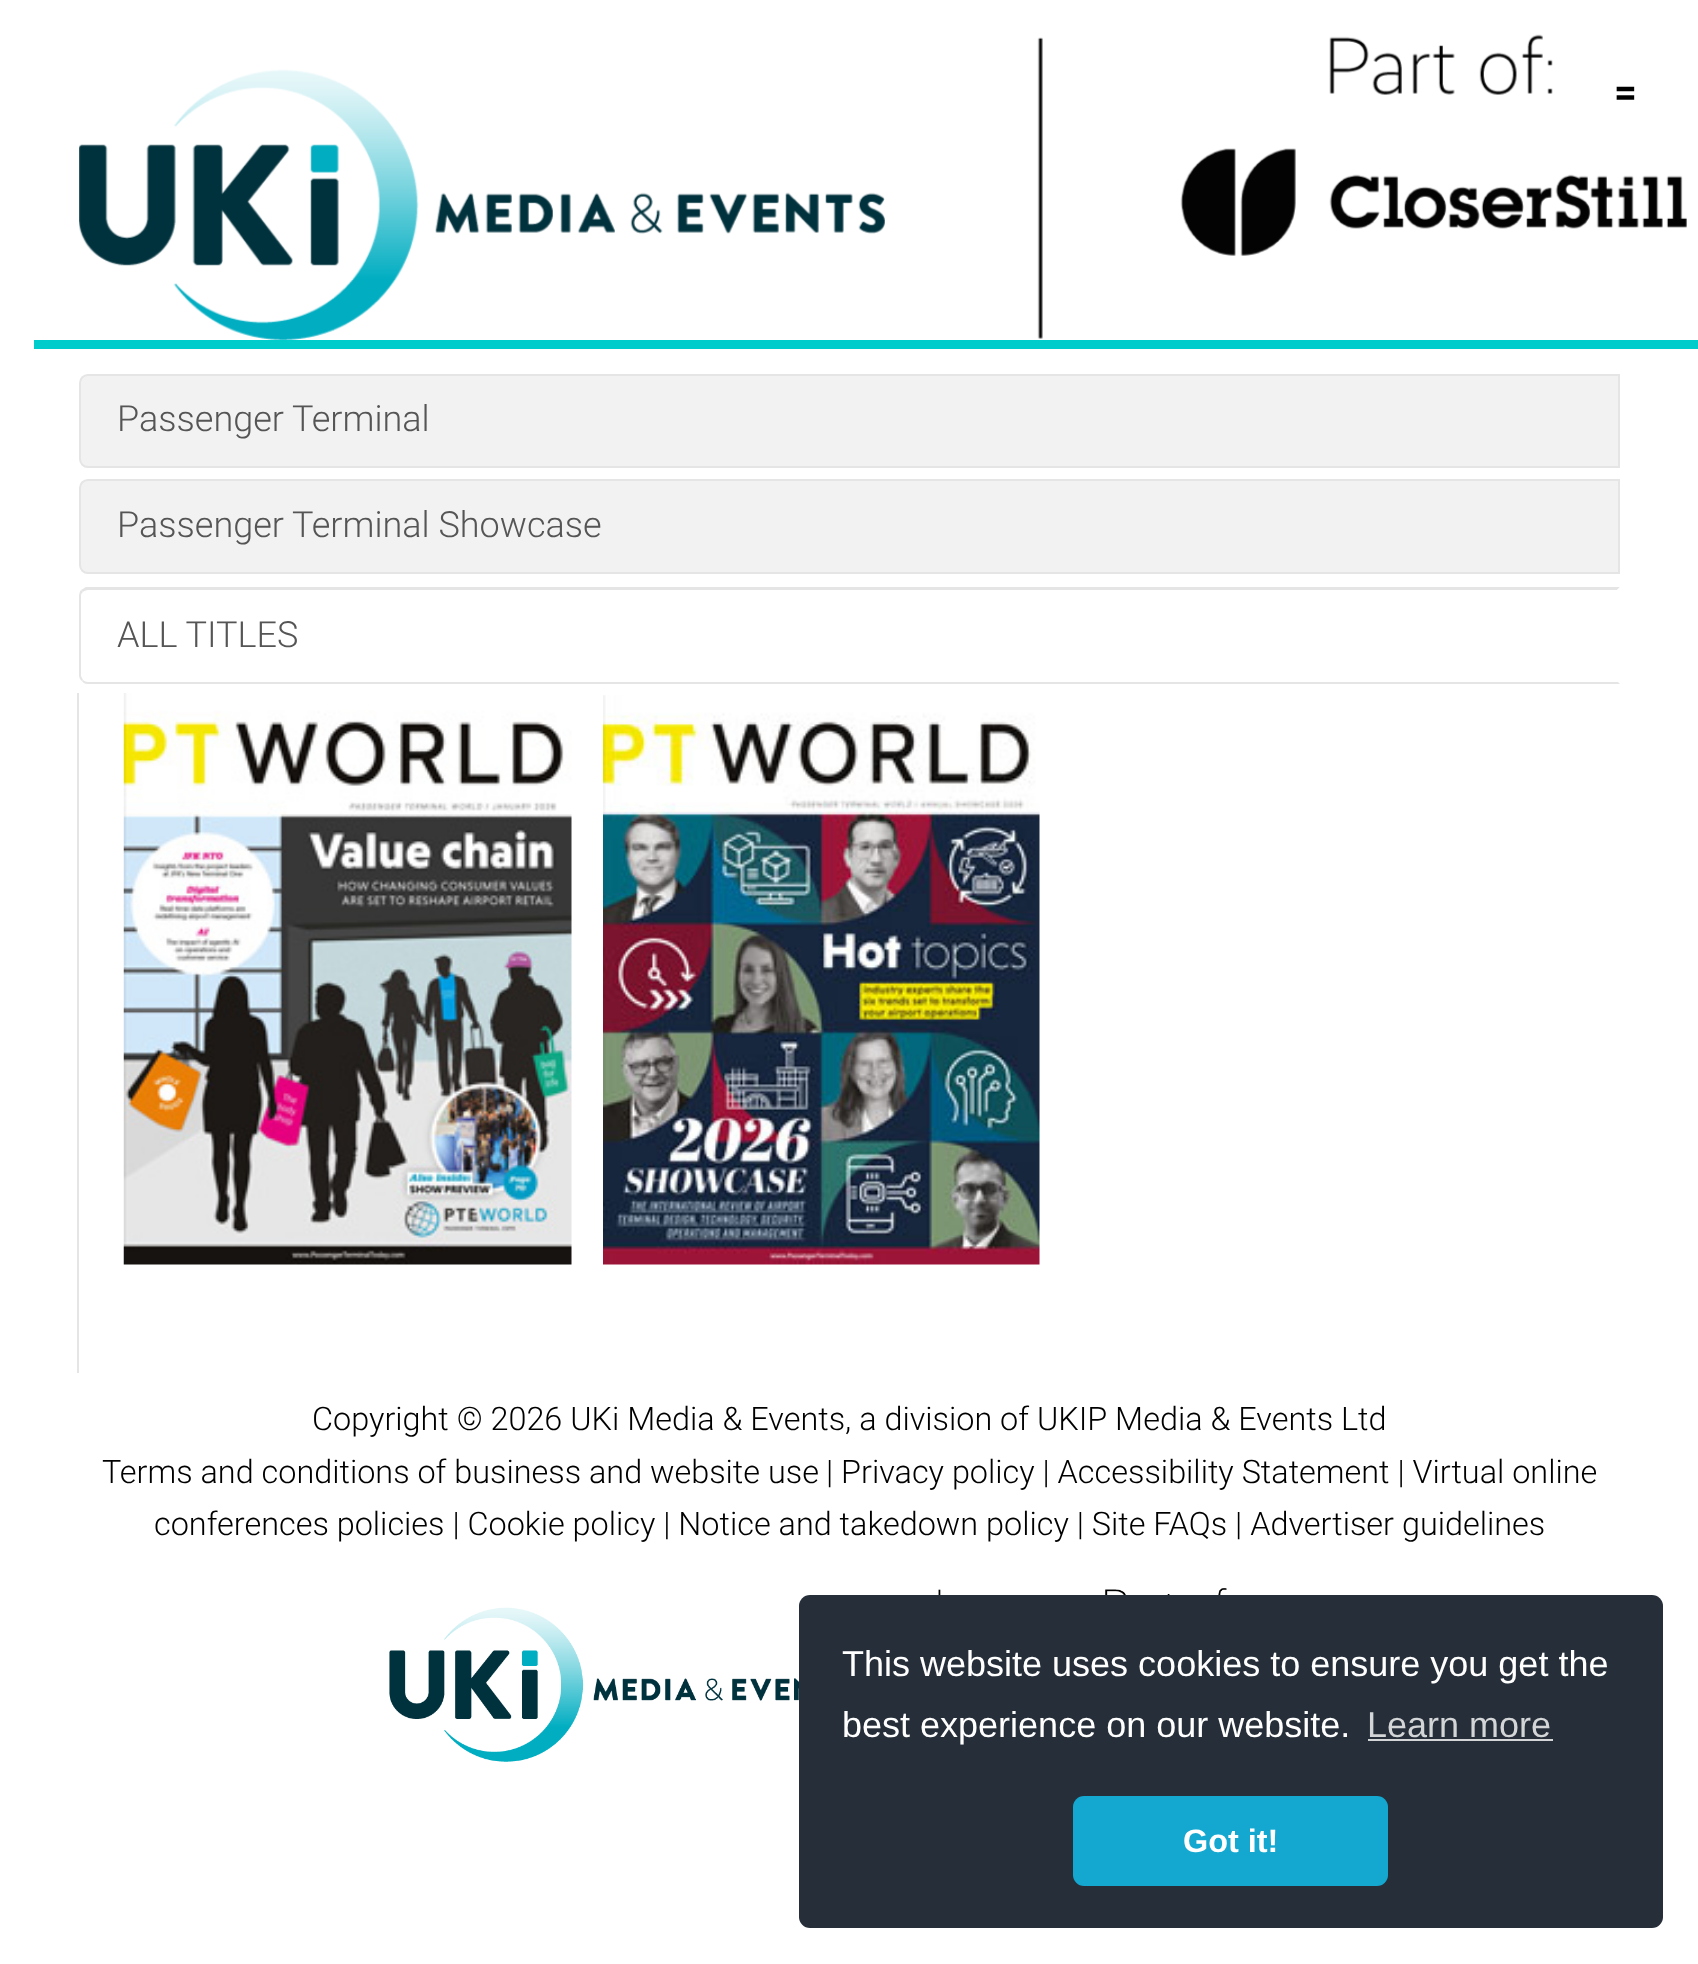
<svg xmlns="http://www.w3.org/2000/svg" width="1698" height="1964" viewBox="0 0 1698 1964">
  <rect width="100%" height="100%" fill="#ffffff"/>
  <rect x="34" y="340" width="1664" height="9" fill="#00cccb"/>
  <image x="79" y="34" width="1608" height="306" href="img1.png"/>
  <text x="1614" y="106" font-family="Roboto" font-size="40" font-weight="bold" fill="#000000">=</text>
  <path d="M88 375H1619V467H88C83.5 467 80 463.5 80 459V383C80 378.5 83.5 375 88 375Z" fill="#f2f2f2" stroke="#e5e5e5" stroke-width="2"/>
  <text x="117" y="431" font-family="Roboto" font-size="36" font-weight="300" fill="#555555">Passenger Terminal</text>
  <path d="M88 480H1619V573H88C83.5 573 80 569.5 80 565V488C80 483.5 83.5 480 88 480Z" fill="#f2f2f2" stroke="#e5e5e5" stroke-width="2"/>
  <text x="117" y="537" font-family="Roboto" font-size="36" font-weight="300" fill="#555555">Passenger Terminal Showcase</text>
  <path d="M88 590C86 590 84 591 83 592L81 590C83 589 84 588 86 587H1620L1617 590Z" fill="#e5e5e5"/>
  <path d="M1620 587L1617 590H1618V682L1620 684Z" fill="#ffffff"/>
  <path d="M1620 684L1618 682H88C86 682 84 681 83 680L82 681C83 683 85 684 88 684Z" fill="#e5e5e5"/>
  <path d="M82 681C80 680 79 677 79 675V596C79 594 80 591 81 590L83 592C82 593 81 594 81 595V676L83 680Z" fill="#e5e5e5"/>
  <text x="117" y="647" font-family="Roboto" font-size="36" font-weight="300" fill="#555555">ALL TITLES</text>
  <rect x="77" y="693" width="2" height="680" fill="#e5e5e5"/>
  <image x="123" y="693" width="449" height="572" href="img2.png"/>
  <image x="603" y="695" width="437" height="570" href="img3.png"/>
  <text x="312" y="1430" font-family="Roboto" font-size="32.4" font-weight="300" fill="#000000">Copyright © 2026 UKi Media &amp; Events, a division of UKIP Media &amp; Events Ltd</text>
  <text x="102" y="1483" font-family="Roboto" font-size="32.4" font-weight="300" fill="#000000">Terms and conditions of business and website use</text>
  <text x="826" y="1483" font-family="Roboto" font-size="32.4" font-weight="300" fill="#000000">| Privacy policy | Accessibility Statement | Virtual online</text>
  <text x="154" y="1535" font-family="Roboto" font-size="32.4" font-weight="300" fill="#000000">conferences policies | Cookie policy | Notice and takedown policy | Site FAQs | Advertiser guidelines</text>
  <image x="389" y="1588" width="838" height="174" href="img4.png"/>
  <rect x="799" y="1595" width="864" height="333" rx="11" fill="#252e39"/>
  <text x="842" y="1676" font-family="Liberation Sans" font-size="36" fill="#ffffff">This website uses cookies to ensure you get the</text>
  <text x="842" y="1737" font-family="Liberation Sans" font-size="36" fill="#ffffff">best experience on our website.</text>
  <text x="1367" y="1737" font-family="Liberation Sans" font-size="36" fill="#d3d5d7">Learn more</text>
  <rect x="1368" y="1739" width="185" height="2" fill="#d3d5d7"/>
  <rect x="1073" y="1796" width="315" height="90" rx="11" fill="#14a7d0"/>
  <text x="1183" y="1852" font-family="Liberation Sans" font-size="32.4" font-weight="bold" fill="#ffffff">Got it!</text>
</svg>
